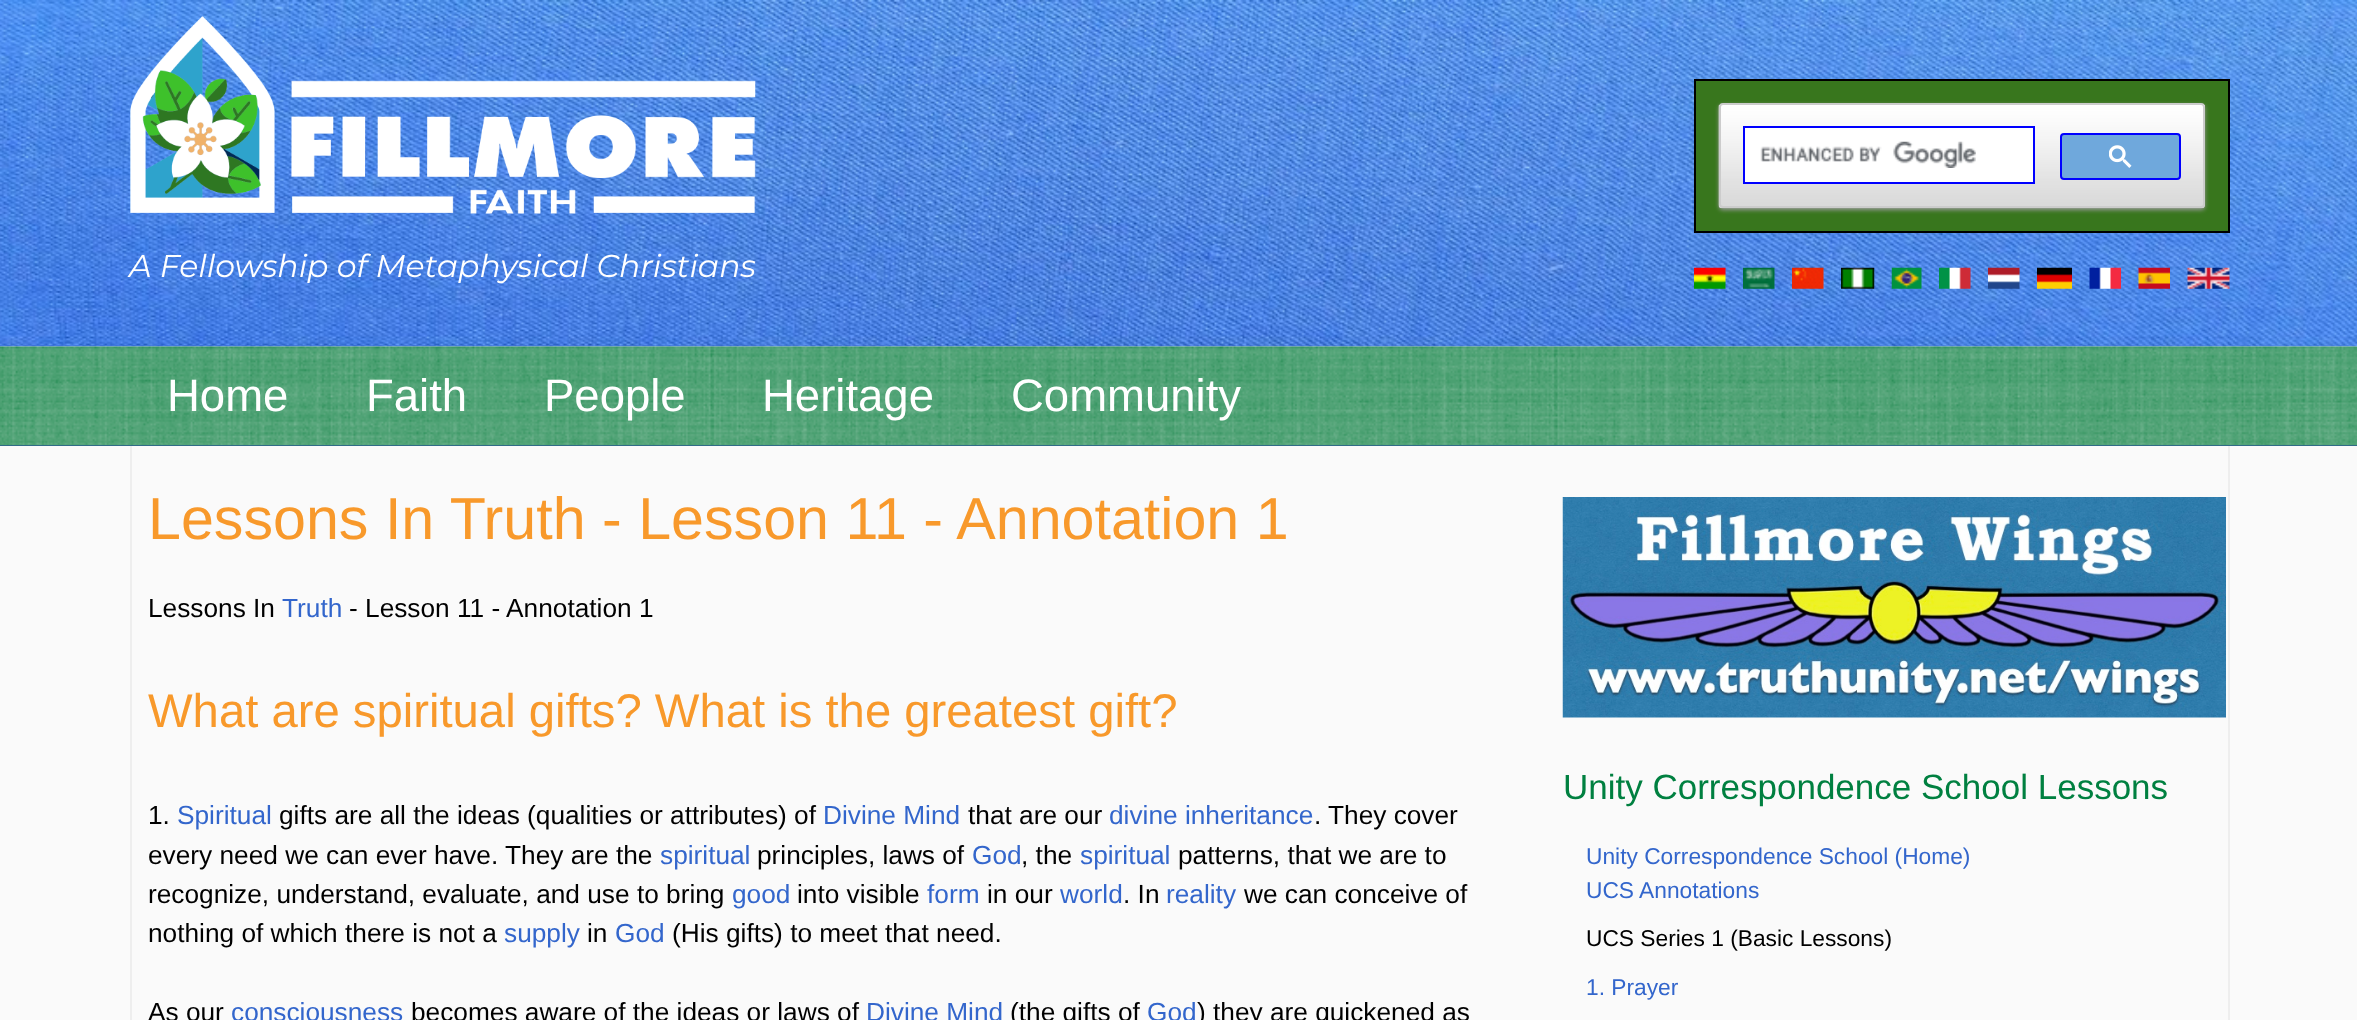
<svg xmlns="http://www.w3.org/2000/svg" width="2357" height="1020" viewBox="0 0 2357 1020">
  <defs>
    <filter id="blur1" x="-50%" y="-200%" width="200%" height="500%"><feGaussianBlur stdDeviation="2"/></filter>
    <filter id="blur2" x="-50%" y="-200%" width="200%" height="500%"><feGaussianBlur stdDeviation="9"/></filter>
  </defs>
  <rect width="100%" height="100%" fill="#ffffff"/>
  <image x="0" y="0" width="2357" height="347" href="img1.png"/>
  <image x="130" y="15" width="626" height="199" href="img2.png"/>
  <text x="129" y="277" font-family="Montserrat" font-size="31.5" font-style="italic" fill="#ffffff">A Fellowship of Metaphysical Christians</text>
  <rect x="1695" y="80" width="534" height="152" fill="#38761d" stroke="#000000" stroke-width="2"/>
  <rect x="1719" y="105" width="486" height="105" rx="4" fill="#999999" filter="url(#blur1)"/>
  <image x="1718" y="105" width="487" height="104" href="img3.png"/>
  <rect x="1720" y="104" width="484" height="103" rx="3" fill="none" stroke="#cccccc" stroke-width="2"/>
  <rect x="1744" y="127" width="290" height="56" fill="#ffffff" stroke="#0000ff" stroke-width="2"/>
  <image x="1760" y="141" width="216" height="27" href="img4.png"/>
  <rect x="2061" y="134" width="119" height="45" rx="3" fill="#6fa8dc" stroke="#0000ff" stroke-width="2"/>
  <image x="2109" y="145" width="23" height="23" href="img5.png"/>
  <image x="1694" y="267" width="32" height="22" href="img6.png"/>
  <image x="1743" y="267" width="32" height="22" href="img7.png"/>
  <image x="1792" y="267" width="32" height="22" href="img8.png"/>
  <image x="1841" y="267" width="34" height="22" href="img9.png"/>
  <image x="1891" y="267" width="31" height="22" href="img10.png"/>
  <image x="1939" y="267" width="32" height="22" href="img11.png"/>
  <image x="1988" y="267" width="32" height="22" href="img12.png"/>
  <image x="2037" y="267" width="35" height="22" href="img13.png"/>
  <image x="2089" y="267" width="32" height="22" href="img14.png"/>
  <image x="2138" y="267" width="32" height="22" href="img15.png"/>
  <image x="2187" y="267" width="43" height="22" href="img16.png"/>
  <rect x="-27" y="355" width="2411" height="100" fill="#000000" fill-opacity="0.25" filter="url(#blur2)"/>
  <image x="0" y="346" width="2357" height="99" href="img17.png"/>
  <rect x="0" y="445" width="2357" height="1" fill="#306b87"/>
  <text x="167" y="411" font-family="Liberation Sans" font-size="45.5" fill="#ffffff">Home</text>
  <text x="366" y="411" font-family="Liberation Sans" font-size="45.5" fill="#ffffff">Faith</text>
  <text x="544" y="411" font-family="Liberation Sans" font-size="45.5" fill="#ffffff">People</text>
  <text x="762" y="411" font-family="Liberation Sans" font-size="45.5" fill="#ffffff">Heritage</text>
  <text x="1011" y="411" font-family="Liberation Sans" font-size="45.5" fill="#ffffff">Community</text>
  <rect x="0" y="446" width="2357" height="574" fill="#fafafa"/>
  <rect x="2228" y="446" width="2" height="574" fill="#eeeeee"/>
  <rect x="130" y="446" width="2" height="574" fill="#eeeeee"/>
  <text x="148" y="539" font-family="Liberation Sans" font-size="59.2" fill="#f8992b">Lessons In Truth - Lesson 11 - Annotation 1</text>
  <text x="148" y="617" font-family="Liberation Sans" font-size="26.25" fill="#000000">Lessons In</text>
  <text x="282" y="617" font-family="Liberation Sans" font-size="26.25" fill="#3366cc">Truth</text>
  <text x="349" y="617" font-family="Liberation Sans" font-size="26.25" fill="#000000">- Lesson 11 - Annotation 1</text>
  <text x="148" y="727" font-family="Liberation Sans" font-size="47.25" fill="#f8992b">What are spiritual gifts? What is the greatest gift?</text>
  <text x="148" y="824" font-family="Liberation Sans" font-size="26.25" fill="#000000">1.</text>
  <text x="177" y="824" font-family="Liberation Sans" font-size="26.25" fill="#3366cc">Spiritual</text>
  <text x="279" y="824" font-family="Liberation Sans" font-size="26.25" fill="#000000">gifts are all the ideas (qualities or attributes) of</text>
  <text x="823" y="824" font-family="Liberation Sans" font-size="26.25" fill="#3366cc">Divine Mind</text>
  <text x="968" y="824" font-family="Liberation Sans" font-size="26.25" fill="#000000">that are our</text>
  <text x="1109" y="824" font-family="Liberation Sans" font-size="26.25" fill="#3366cc">divine inheritance</text>
  <text x="1314" y="824" font-family="Liberation Sans" font-size="26.25" fill="#000000">.</text>
  <text x="1328" y="824" font-family="Liberation Sans" font-size="26.25" fill="#000000">They cover</text>
  <text x="148" y="864" font-family="Liberation Sans" font-size="26.25" fill="#000000">every need we can ever have.</text>
  <text x="505" y="864" font-family="Liberation Sans" font-size="26.25" fill="#000000">They are the</text>
  <text x="660" y="864" font-family="Liberation Sans" font-size="26.25" fill="#3366cc">spiritual</text>
  <text x="757" y="864" font-family="Liberation Sans" font-size="26.25" fill="#000000">principles, laws of</text>
  <text x="972" y="864" font-family="Liberation Sans" font-size="26.25" fill="#3366cc">God</text>
  <text x="1021" y="864" font-family="Liberation Sans" font-size="26.25" fill="#000000">, the</text>
  <text x="1080" y="864" font-family="Liberation Sans" font-size="26.25" fill="#3366cc">spiritual</text>
  <text x="1178" y="864" font-family="Liberation Sans" font-size="26.25" fill="#000000">patterns, that we are to</text>
  <text x="148" y="903" font-family="Liberation Sans" font-size="26.25" fill="#000000">recognize, understand, evaluate, and use to bring</text>
  <text x="732" y="903" font-family="Liberation Sans" font-size="26.25" fill="#3366cc">good</text>
  <text x="797" y="903" font-family="Liberation Sans" font-size="26.25" fill="#000000">into visible</text>
  <text x="927" y="903" font-family="Liberation Sans" font-size="26.25" fill="#3366cc">form</text>
  <text x="987" y="903" font-family="Liberation Sans" font-size="26.25" fill="#000000">in our</text>
  <text x="1060" y="903" font-family="Liberation Sans" font-size="26.25" fill="#3366cc">world</text>
  <text x="1123" y="903" font-family="Liberation Sans" font-size="26.25" fill="#000000">. In</text>
  <text x="1166" y="903" font-family="Liberation Sans" font-size="26.25" fill="#3366cc">reality</text>
  <text x="1244" y="903" font-family="Liberation Sans" font-size="26.25" fill="#000000">we can conceive of</text>
  <text x="148" y="942" font-family="Liberation Sans" font-size="26.25" fill="#000000">nothing of which there is not a</text>
  <text x="504" y="942" font-family="Liberation Sans" font-size="26.25" fill="#3366cc">supply</text>
  <text x="587" y="942" font-family="Liberation Sans" font-size="26.25" fill="#000000">in</text>
  <text x="615" y="942" font-family="Liberation Sans" font-size="26.25" fill="#3366cc">God</text>
  <text x="672" y="942" font-family="Liberation Sans" font-size="26.25" fill="#000000">(His gifts) to meet that need.</text>
  <text x="148" y="1021" font-family="Liberation Sans" font-size="26.25" fill="#000000">As our</text>
  <text x="231" y="1021" font-family="Liberation Sans" font-size="26.25" fill="#3366cc">consciousness</text>
  <text x="411" y="1021" font-family="Liberation Sans" font-size="26.25" fill="#000000">becomes aware of the ideas or laws of</text>
  <text x="866" y="1021" font-family="Liberation Sans" font-size="26.25" fill="#3366cc">Divine Mind</text>
  <text x="1010" y="1021" font-family="Liberation Sans" font-size="26.25" fill="#000000">(the gifts of</text>
  <text x="1147" y="1021" font-family="Liberation Sans" font-size="26.25" fill="#3366cc">God</text>
  <text x="1197" y="1021" font-family="Liberation Sans" font-size="26.25" fill="#000000">) they are quickened as</text>
  <image x="1562" y="497" width="664" height="221" href="img18.png"/>
  <text x="1563" y="799" font-family="Liberation Sans" font-size="35" fill="#008040">Unity Correspondence School Lessons</text>
  <text x="1586" y="864" font-family="Liberation Sans" font-size="22.75" fill="#3366cc">Unity Correspondence School (Home)</text>
  <text x="1586" y="898" font-family="Liberation Sans" font-size="22.75" fill="#3366cc">UCS Annotations</text>
  <text x="1586" y="946" font-family="Liberation Sans" font-size="22.75" fill="#000000">UCS Series 1 (Basic Lessons)</text>
  <text x="1586" y="995" font-family="Liberation Sans" font-size="22.75" fill="#3366cc">1. Prayer</text>
</svg>
